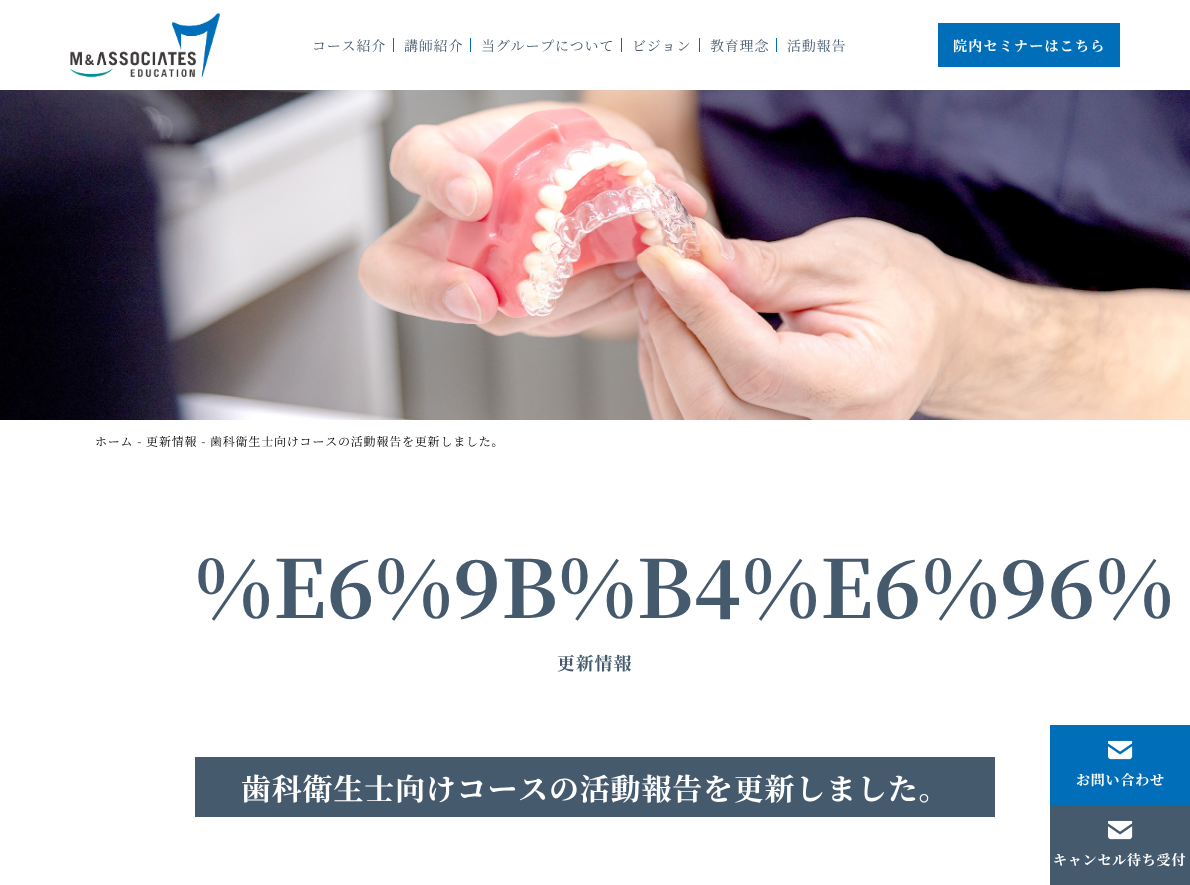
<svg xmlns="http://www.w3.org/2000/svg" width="1190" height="885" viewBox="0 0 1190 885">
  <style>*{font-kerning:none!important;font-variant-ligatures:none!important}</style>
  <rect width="100%" height="100%" fill="#ffffff"/>
  <image x="70" y="13" width="150" height="65" href="img1.png"/>
  <text x="312" y="51" font-family="Noto Serif JP" font-size="14" letter-spacing="0.8" fill="#465a6e">コース紹介</text>
  <rect x="393" y="38" width="1" height="14" fill="#006eac"/>
  <text x="404" y="51" font-family="Noto Serif JP" font-size="14" letter-spacing="0.8" fill="#465a6e">講師紹介</text>
  <rect x="470" y="38" width="1" height="14" fill="#006eac"/>
  <text x="481" y="51" font-family="Noto Serif JP" font-size="14" letter-spacing="0.8" fill="#465a6e">当グループについて</text>
  <rect x="621" y="38" width="1" height="14" fill="#006eac"/>
  <text x="632" y="51" font-family="Noto Serif JP" font-size="14" letter-spacing="0.8" fill="#465a6e">ビジョン</text>
  <rect x="699" y="38" width="1" height="14" fill="#006eac"/>
  <text x="710" y="51" font-family="Noto Serif JP" font-size="14" letter-spacing="0.8" fill="#465a6e">教育理念</text>
  <rect x="776" y="38" width="1" height="14" fill="#006eac"/>
  <text x="787" y="51" font-family="Noto Serif JP" font-size="14" letter-spacing="0.8" fill="#465a6e">活動報告</text>
  <rect x="938" y="23" width="182" height="44" fill="#006eb8"/>
  <text x="953" y="51" font-family="Noto Serif JP" font-size="14" font-weight="bold" letter-spacing="1.25" fill="#ffffff">院内セミナーはこちら</text>
  <image x="0" y="90" width="1190" height="330" href="img2.png"/>
  <text x="95" y="446" font-family="Noto Serif JP" font-size="12" letter-spacing="0.8" fill="#000000">ホーム - 更新情報 - 歯科衛生士向けコースの活動報告を更新しました。</text>
  <text x="195" y="618" font-family="Noto Serif JP" font-size="80" font-weight="bold" letter-spacing="0.8" fill="#465a6e">%E6%9B%B4%E6%96%</text>
  <text x="557" y="670" font-family="Noto Serif JP" font-size="18" font-weight="bold" letter-spacing="0.8" fill="#465a6e">更新情報</text>
  <rect x="195" y="757" width="800" height="60" fill="#465a6e"/>
  <text x="241" y="800" font-family="Noto Serif JP" font-size="30" font-weight="bold" letter-spacing="0.8" fill="#ffffff">歯科衛生士向けコースの活動報告を更新しました。</text>
  <rect x="1050" y="725" width="140" height="80" fill="#006eb8"/>
  <image x="1108" y="740" width="25" height="20" href="img3.png"/>
  <text x="1076" y="785" font-family="Noto Serif JP" font-size="14" font-weight="bold" letter-spacing="0.8" fill="#ffffff">お問い合わせ</text>
  <rect x="1050" y="805" width="140" height="80" fill="#465a6e"/>
  <image x="1108" y="820" width="25" height="20" href="img4.png"/>
  <text x="1053" y="865" font-family="Noto Serif JP" font-size="14" font-weight="bold" letter-spacing="0.8" fill="#ffffff">キャンセル待ち受付</text>
</svg>
